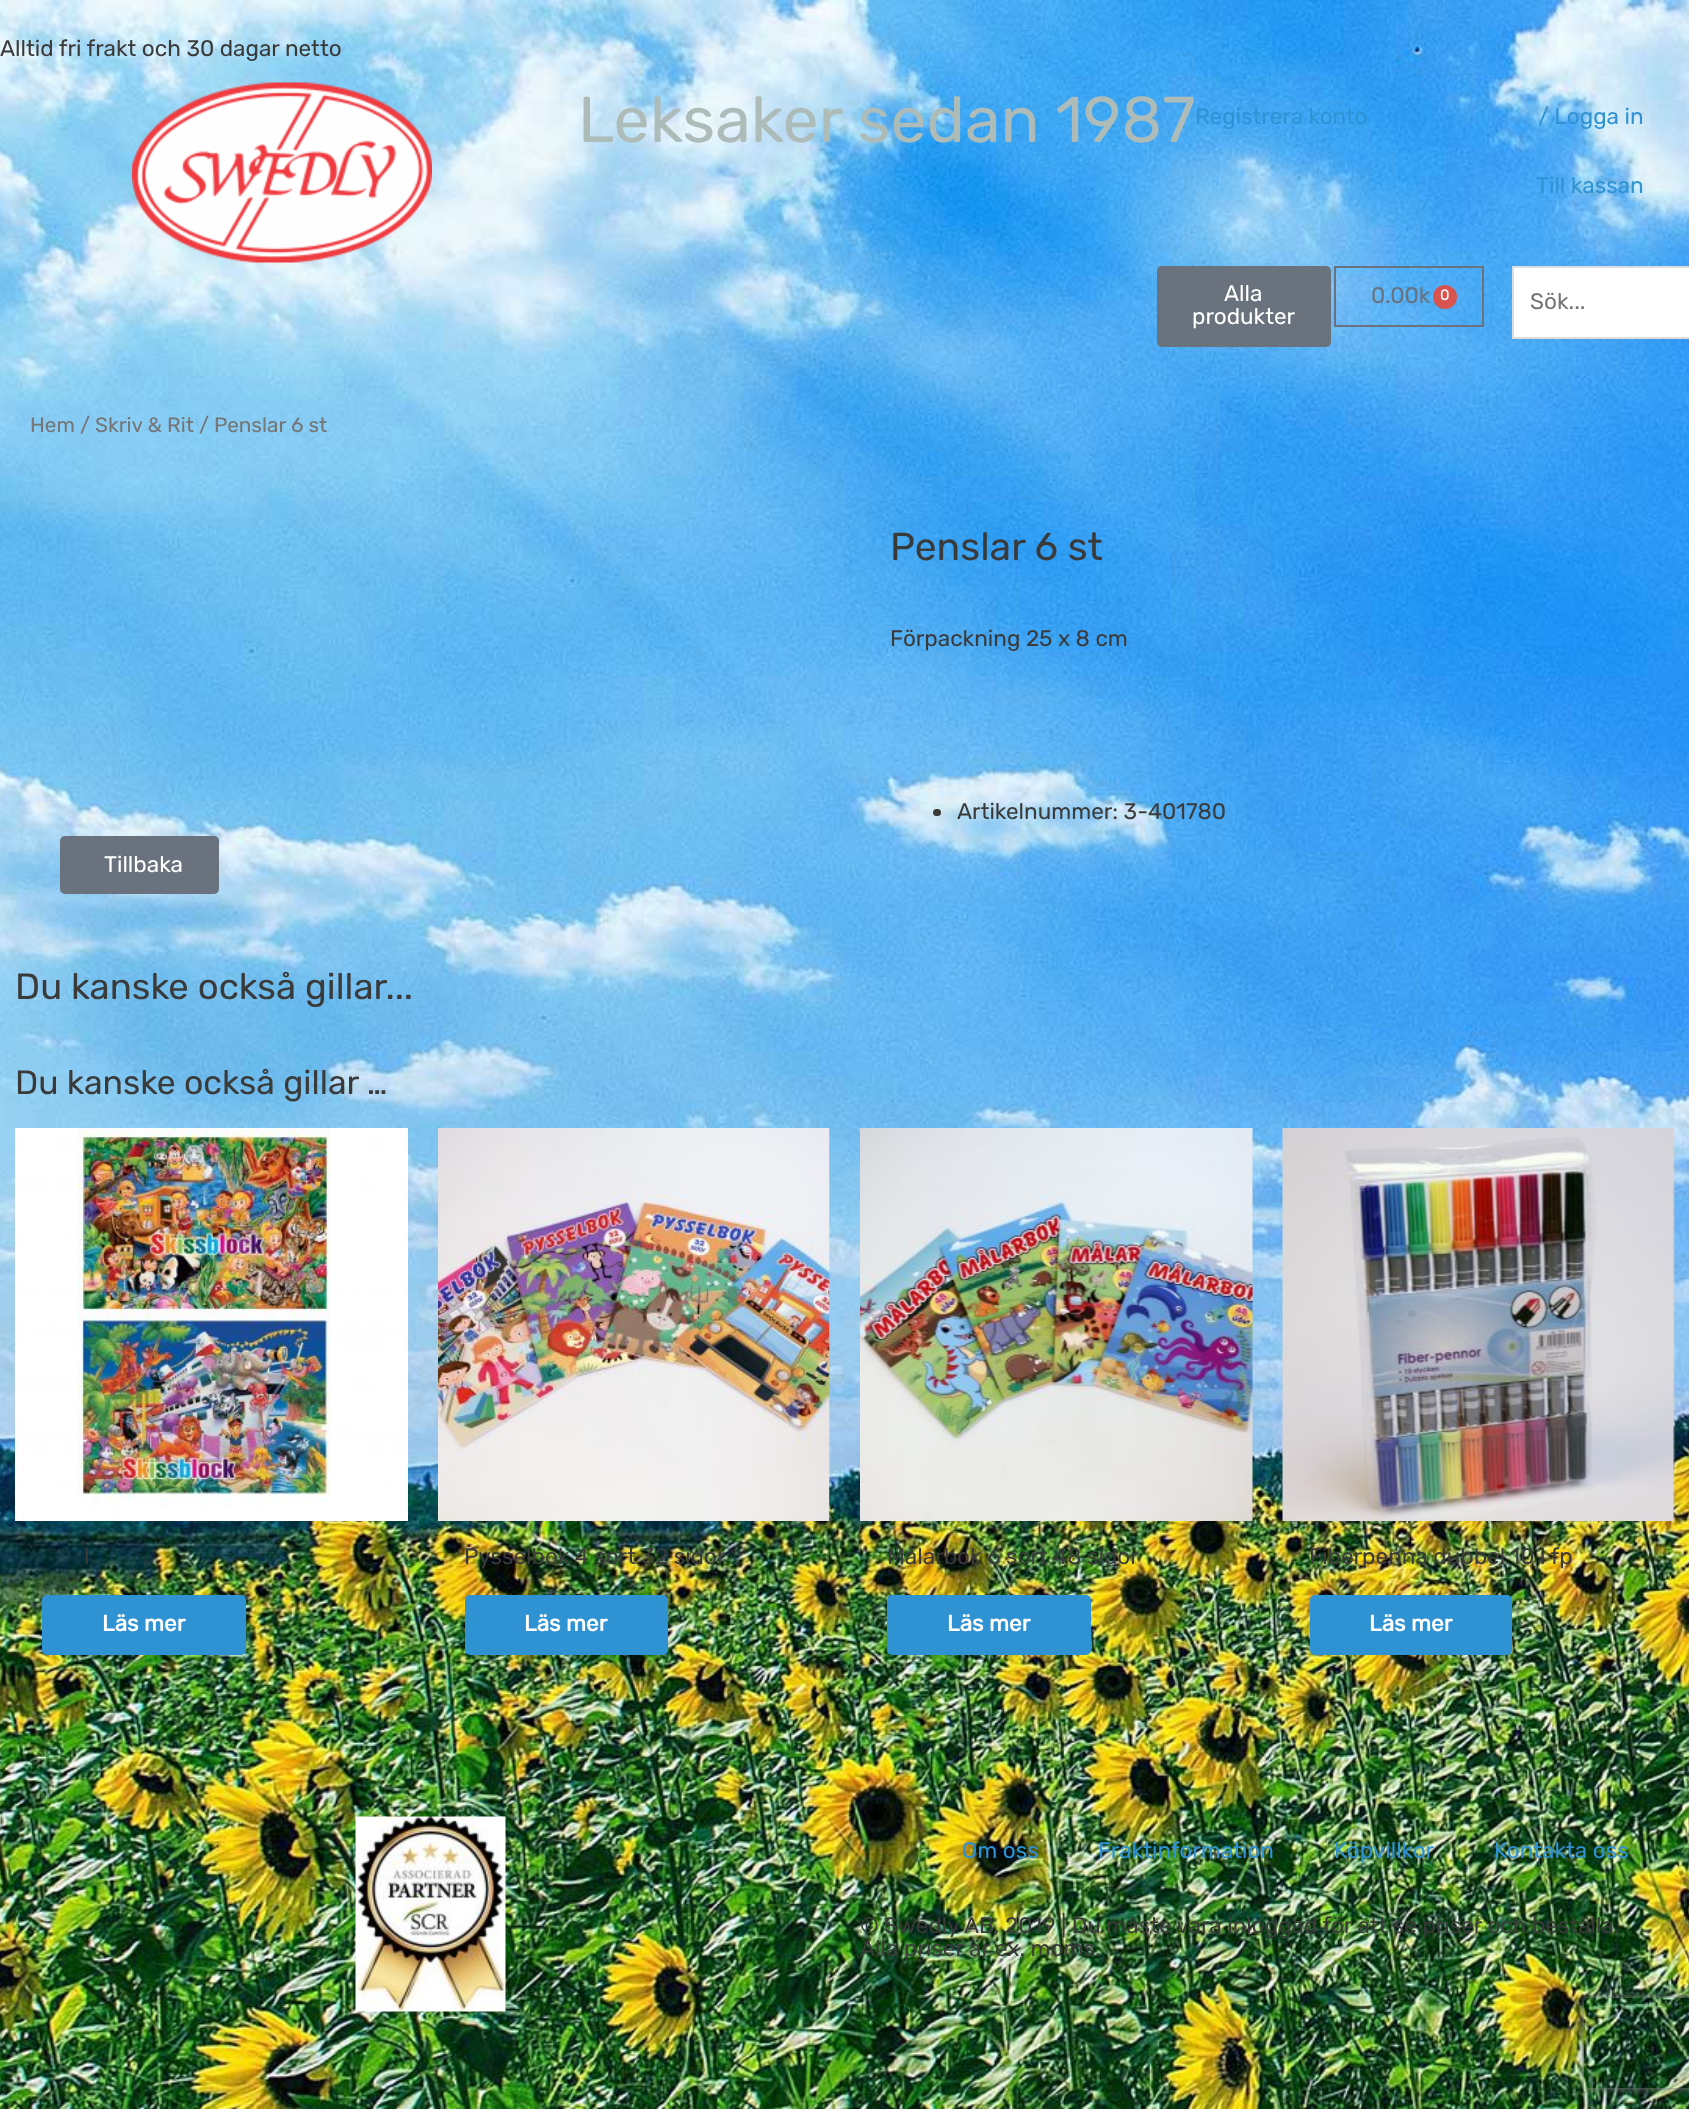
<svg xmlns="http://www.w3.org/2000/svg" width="1689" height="2109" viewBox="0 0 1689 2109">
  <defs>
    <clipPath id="clip1"><path d="M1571 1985H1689V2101H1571ZM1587 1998H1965C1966.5 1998 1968 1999.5 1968 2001V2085C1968 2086.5 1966.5 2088 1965 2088H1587C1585.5 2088 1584 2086.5 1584 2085V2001C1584 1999.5 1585.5 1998 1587 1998Z" clip-rule="evenodd"/></clipPath>
    <filter id="blur1" x="-50%" y="-200%" width="200%" height="500%"><feGaussianBlur stdDeviation="4"/></filter>
  </defs>
  <rect width="100%" height="100%" fill="#ffffff"/>
  <image x="0" y="0" width="1689" height="2109" href="img1.png"/>
  <text x="0" y="56" font-family="Rubik" font-size="22.5" font-weight="300" fill="#3a3a3a">Alltid fri frakt och 30 dagar netto</text>
  <image x="132" y="82" width="300" height="181" href="img2.png"/>
  <text x="578" y="142" font-family="Rubik" font-size="64.5" font-weight="300" fill="#aebcb9">Leksaker sedan 1987</text>
  <text x="1195" y="124" font-family="Rubik" font-size="22.5" font-weight="300" fill="#2f92d3">Registrera konto</text>
  <text x="1538" y="124" font-family="Rubik" font-size="22.5" font-weight="300" fill="#2f92d3">/ Logga in</text>
  <text x="1536" y="193" font-family="Rubik" font-size="22.5" font-weight="300" fill="#2f92d3">Till kassan</text>
  <rect x="1157" y="266" width="174" height="81" rx="5" fill="#69727d"/>
  <text x="1224" y="301" font-family="Rubik" font-size="22.5" font-weight="300" fill="#ffffff">Alla</text>
  <text x="1192" y="324" font-family="Rubik" font-size="22.5" font-weight="300" fill="#ffffff">produkter</text>
  <rect x="1335" y="267" width="148" height="59" fill="none" stroke="#69727d" stroke-width="2"/>
  <text x="1371" y="303" font-family="Rubik" font-size="22.5" font-weight="300" fill="#69727d">0.00k</text>
  <circle cx="1445" cy="297" r="12" fill="#d9534f"/>
  <text x="1440" y="300" font-family="Rubik" font-size="15" font-weight="300" fill="#ffffff">0</text>
  <rect x="1513" y="267" width="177" height="71" fill="#ffffff" stroke="#dddddd" stroke-width="2"/>
  <text x="1530" y="309" font-family="Rubik" font-size="22.5" font-weight="300" fill="#757575">Sök...</text>
  <text x="30" y="432" font-family="Rubik" font-size="20.75" font-weight="300" fill="#757575">Hem / Skriv &amp; Rit / Penslar 6 st</text>
  <text x="890" y="560" font-family="Rubik" font-size="39" font-weight="300" fill="#3a3a3a">Penslar 6 st</text>
  <text x="890" y="646" font-family="Rubik" font-size="22.5" font-weight="300" fill="#3a3a3a">Förpackning 25 x 8 cm</text>
  <rect x="933" y="809" width="8" height="7" rx="3.5" fill="#3a3a3a"/>
  <text x="957" y="819" font-family="Rubik" font-size="22.5" font-weight="300" fill="#3a3a3a">Artikelnummer: 3-401780</text>
  <rect x="60" y="836" width="159" height="58" rx="5" fill="#69727d"/>
  <text x="104" y="872" font-family="Rubik" font-size="22.5" font-weight="300" fill="#ffffff">Tillbaka</text>
  <text x="15" y="999" font-family="Rubik" font-size="36.5" font-weight="300" fill="#3a3a3a">Du kanske också gillar...</text>
  <text x="15" y="1094" font-family="Rubik" font-size="33.75" font-weight="300" fill="#3a3a3a">Du kanske också gillar …</text>
  <image x="15" y="1128" width="393" height="393" href="img3.png"/>
  <text x="84" y="1564" font-family="Rubik" font-size="22.5" font-weight="300" fill="#3a3a3a">l</text>
  <rect x="42" y="1595" width="204" height="60" rx="5" fill="#2f92d3"/>
  <text x="102" y="1631" font-family="Rubik" font-size="22.5" font-weight="bold" fill="#ffffff">Läs mer</text>
  <image x="438" y="1128" width="392" height="393" href="img4.png"/>
  <text x="464" y="1564" font-family="Rubik" font-size="22.5" font-weight="300" fill="#3a3a3a">Pysselbok 4 sort 32 sidor</text>
  <rect x="465" y="1595" width="203" height="60" rx="5" fill="#2f92d3"/>
  <text x="524" y="1631" font-family="Rubik" font-size="22.5" font-weight="bold" fill="#ffffff">Läs mer</text>
  <image x="860" y="1128" width="393" height="393" href="img5.png"/>
  <text x="887" y="1564" font-family="Rubik" font-size="22.5" font-weight="300" fill="#3a3a3a">Målarbok 6 sort 48 sidor</text>
  <rect x="887" y="1595" width="204" height="60" rx="5" fill="#2f92d3"/>
  <text x="947" y="1631" font-family="Rubik" font-size="22.5" font-weight="bold" fill="#ffffff">Läs mer</text>
  <image x="1282" y="1128" width="393" height="393" href="img6.png"/>
  <text x="1309" y="1564" font-family="Rubik" font-size="22.5" font-weight="300" fill="#3a3a3a">Fiberpenna dubbel 10 i fp</text>
  <rect x="1310" y="1595" width="202" height="60" rx="5" fill="#2f92d3"/>
  <text x="1369" y="1631" font-family="Rubik" font-size="22.5" font-weight="bold" fill="#ffffff">Läs mer</text>
  <image x="355" y="1816" width="151" height="196" href="img7.png"/>
  <text x="962" y="1858" font-family="Rubik" font-size="22.5" font-weight="300" fill="#2f92d3">Om oss</text>
  <text x="1098" y="1858" font-family="Rubik" font-size="22.5" font-weight="300" fill="#2f92d3">Fraktinformation</text>
  <text x="1334" y="1858" font-family="Rubik" font-size="22.5" font-weight="300" fill="#2f92d3">Köpvillkor</text>
  <text x="1494" y="1858" font-family="Rubik" font-size="22.5" font-weight="300" fill="#2f92d3">Kontakta oss</text>
  <text x="860" y="1933" font-family="Rubik" font-size="22.5" font-weight="300" fill="#3a3a3a">© Swedly AB, 2019 | Du måste vara inloggad för att se priser och beställa.</text>
  <text x="860" y="1956" font-family="Rubik" font-size="22.5" font-weight="300" fill="#3a3a3a">Alla priser är ex. moms.</text>
  <g clip-path="url(#clip1)">
    <rect x="1584" y="1998" width="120" height="90" rx="3" fill="#808080" filter="url(#blur1)"/>
  </g>
</svg>
